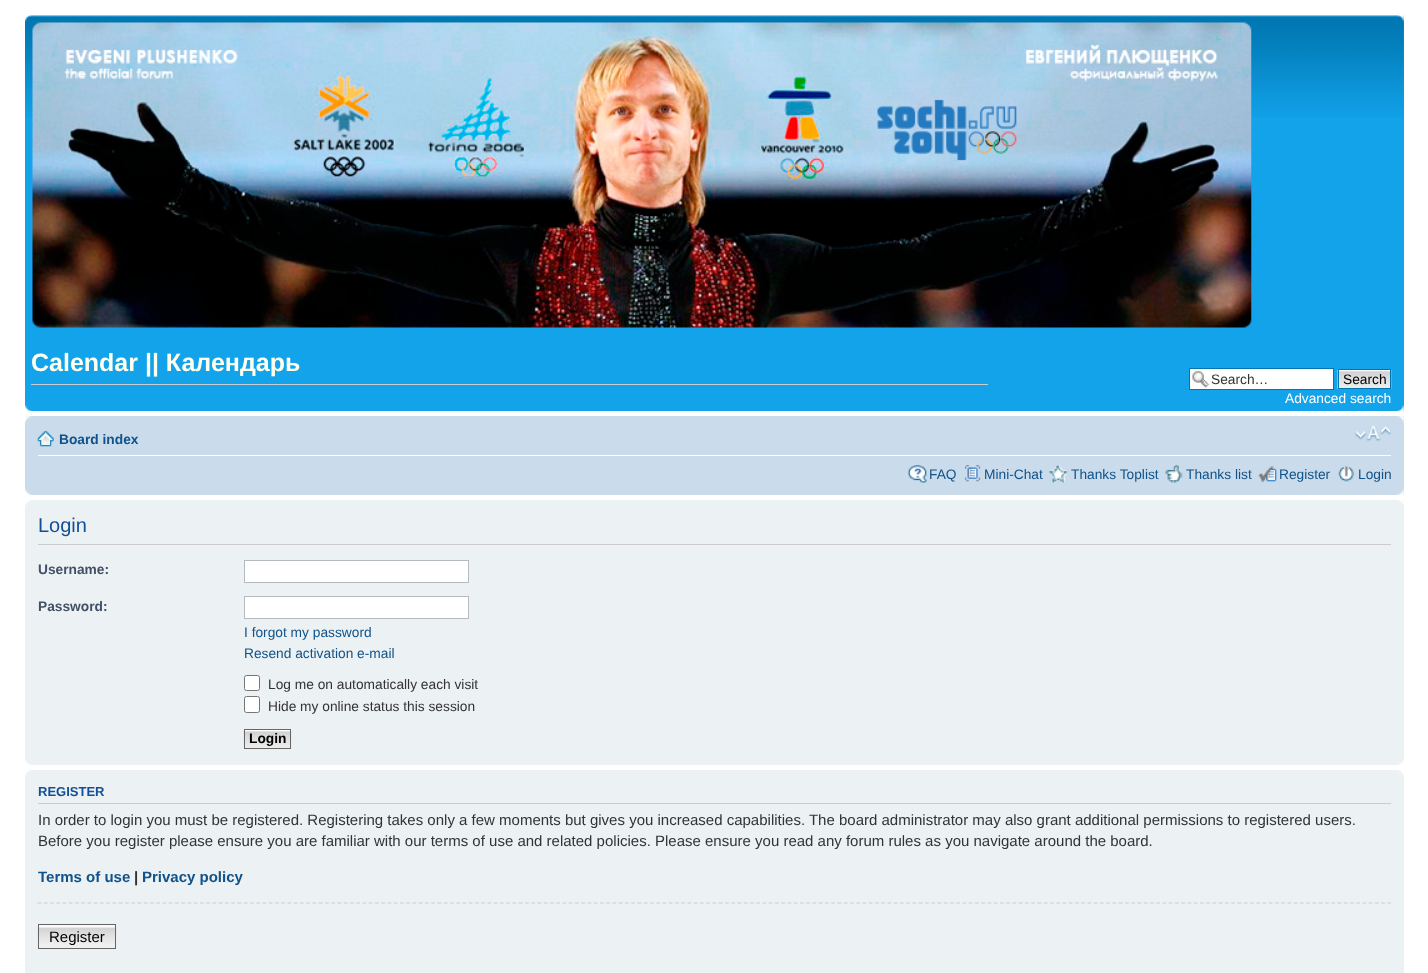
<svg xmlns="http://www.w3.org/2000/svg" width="1428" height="973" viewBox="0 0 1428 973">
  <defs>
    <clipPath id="clip1"><rect x="38" y="776" width="1353" height="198"/></clipPath>
  </defs>
  <rect width="100%" height="100%" fill="#ffffff"/>
  <rect x="25" y="15" width="1379" height="396" fill="#12a3eb"/>
  <image x="25" y="15" width="1379" height="102" href="img1.png"/>
  <image x="25" y="15" width="7" height="7" href="img2.png"/>
  <image x="1397" y="15" width="7" height="7" href="img3.png"/>
  <image x="32" y="22" width="1220" height="306" href="img4.png"/>
  <text x="31" y="371" font-family="Liberation Sans" font-size="25" font-weight="bold" fill="#fffff0">Calendar || Календарь</text>
  <rect x="31" y="384" width="957" height="1" fill="#cccccc"/>
  <rect x="1190" y="369" width="143" height="20" fill="#ffffff"/>
  <image x="1192" y="371" width="17" height="17" href="img5.png"/>
  <rect x="1189.5" y="368.5" width="144" height="21" fill="none" stroke="#0075b0"/>
  <text x="1211" y="384" font-family="Liberation Sans" font-size="13.75" fill="#333333">Search…</text>
  <image x="1337" y="370" width="55" height="19" href="img6.png"/>
  <rect x="1338.5" y="369.5" width="52" height="19" fill="none" stroke="#0075b0"/>
  <text x="1343" y="384" font-family="Liberation Sans" font-size="13.75" fill="#000000">Search</text>
  <text x="1285" y="403" font-family="Liberation Sans" font-size="13.75" fill="#ffffff">Advanced search</text>
  <image x="25" y="405" width="7" height="6" href="img7.png"/>
  <image x="1397" y="405" width="7" height="6" href="img8.png"/>
  <rect x="25" y="416" width="1379" height="79" fill="#cadceb"/>
  <image x="25" y="416" width="6" height="7" href="img9.png"/>
  <image x="1397" y="416" width="7" height="7" href="img10.png"/>
  <rect x="38" y="455" width="1353" height="1" fill="#ffffff"/>
  <image x="37" y="431" width="17" height="16" href="img11.png"/>
  <text x="59" y="444" font-family="Liberation Sans" font-size="13.75" font-weight="bold" fill="#105289">Board index</text>
  <image x="1355" y="426" width="36" height="16" href="img12.png"/>
  <image x="907" y="465" width="21" height="18" href="img13.png"/>
  <text x="929" y="479" font-family="Liberation Sans" font-size="13.75" fill="#105289">FAQ</text>
  <image x="964" y="465" width="17" height="17" href="img14.png"/>
  <text x="984" y="479" font-family="Liberation Sans" font-size="13.75" fill="#105289">Mini-Chat</text>
  <image x="1048" y="465" width="20" height="18" href="img15.png"/>
  <text x="1071" y="479" font-family="Liberation Sans" font-size="13.75" fill="#105289">Thanks Toplist</text>
  <image x="1165" y="465" width="18" height="18" href="img16.png"/>
  <text x="1186" y="479" font-family="Liberation Sans" font-size="13.75" fill="#105289">Thanks list</text>
  <image x="1258" y="466" width="19" height="17" href="img17.png"/>
  <text x="1279" y="479" font-family="Liberation Sans" font-size="13.75" fill="#105289">Register</text>
  <image x="1338" y="466" width="16" height="16" href="img18.png"/>
  <text x="1358" y="479" font-family="Liberation Sans" font-size="13.75" fill="#105289">Login</text>
  <image x="25" y="489" width="6" height="6" href="img19.png"/>
  <image x="1397" y="489" width="7" height="6" href="img20.png"/>
  <rect x="25" y="500" width="1379" height="265" fill="#ecf1f3"/>
  <image x="25" y="500" width="6" height="6" href="img21.png"/>
  <image x="1398" y="500" width="6" height="5" href="img22.png"/>
  <rect x="38" y="544" width="1353" height="1" fill="#cccccc"/>
  <text x="38" y="532" font-family="Liberation Sans" font-size="20" fill="#115098">Login</text>
  <text x="38" y="574" font-family="Liberation Sans" font-size="13.75" font-weight="bold" fill="#425067">Username:</text>
  <rect x="244.5" y="560.5" width="224" height="22" fill="#ffffff" stroke="#b4bac0"/>
  <text x="38" y="611" font-family="Liberation Sans" font-size="13.75" font-weight="bold" fill="#425067">Password:</text>
  <rect x="244.5" y="596.5" width="224" height="22" fill="#ffffff" stroke="#b4bac0"/>
  <text x="244" y="637" font-family="Liberation Sans" font-size="13.75" fill="#105289">I forgot my password</text>
  <text x="244" y="658" font-family="Liberation Sans" font-size="13.75" fill="#105289">Resend activation e-mail</text>
  <rect x="244.5" y="675.5" width="15" height="15" rx="2" fill="#ffffff" stroke="#767676"/>
  <text x="268" y="689" font-family="Liberation Sans" font-size="13.75" fill="#333333">Log me on automatically each visit</text>
  <rect x="244.5" y="696.5" width="15" height="16" rx="2" fill="#ffffff" stroke="#767676"/>
  <text x="268" y="711" font-family="Liberation Sans" font-size="13.75" fill="#333333">Hide my online status this session</text>
  <image x="243" y="730" width="49" height="19" href="img23.png"/>
  <rect x="244.5" y="729.5" width="46" height="19" fill="none" stroke="#666666"/>
  <text x="249" y="743" font-family="Liberation Sans" font-size="13.75" font-weight="bold" fill="#000000">Login</text>
  <image x="25" y="759" width="6" height="6" href="img24.png"/>
  <image x="1398" y="760" width="6" height="5" href="img25.png"/>
  <rect x="25" y="770" width="1379" height="203" fill="#ecf1f3"/>
  <image x="25" y="770" width="6" height="6" href="img21.png"/>
  <image x="1398" y="770" width="6" height="5" href="img22.png"/>
  <rect x="38" y="803" width="1353" height="1" fill="#cccccc"/>
  <text x="38" y="796" font-family="Liberation Sans" font-size="13" font-weight="bold" fill="#115098">REGISTER</text>
  <text x="38" y="825" font-family="Liberation Sans" font-size="15" fill="#333333">In order to login you must be registered. Registering takes only a few moments but gives you increased capabilities. The board administrator may also grant additional permissions to registered users.</text>
  <text x="38" y="846" font-family="Liberation Sans" font-size="15" fill="#333333">Before you register please ensure you are familiar with our terms of use and related policies. Please ensure you read any forum rules as you navigate around the board.</text>
  <g clip-path="url(#clip1)">
    <text x="38" y="882" font-family="Liberation Sans" font-size="15" font-weight="bold" fill="#105289">Terms of use</text>
  </g>
  <text x="134" y="882" font-family="Liberation Sans" font-size="15" font-weight="bold" fill="#333333">|</text>
  <text x="142" y="882" font-family="Liberation Sans" font-size="15" font-weight="bold" fill="#105289">Privacy policy</text>
  <path d="M37.5 903H1391" fill="none" stroke="#cccccc" stroke-width="1.2" stroke-dasharray="3.75 2.5"/>
  <image x="37" y="927" width="80" height="22" href="img26.png"/>
  <rect x="39" y="925" width="76" height="2" fill="#fafafa"/>
  <rect x="38.5" y="924.5" width="77" height="24" fill="none" stroke="#666666"/>
  <text x="49" y="942" font-family="Liberation Sans" font-size="15" fill="#000000">Register</text>
</svg>
